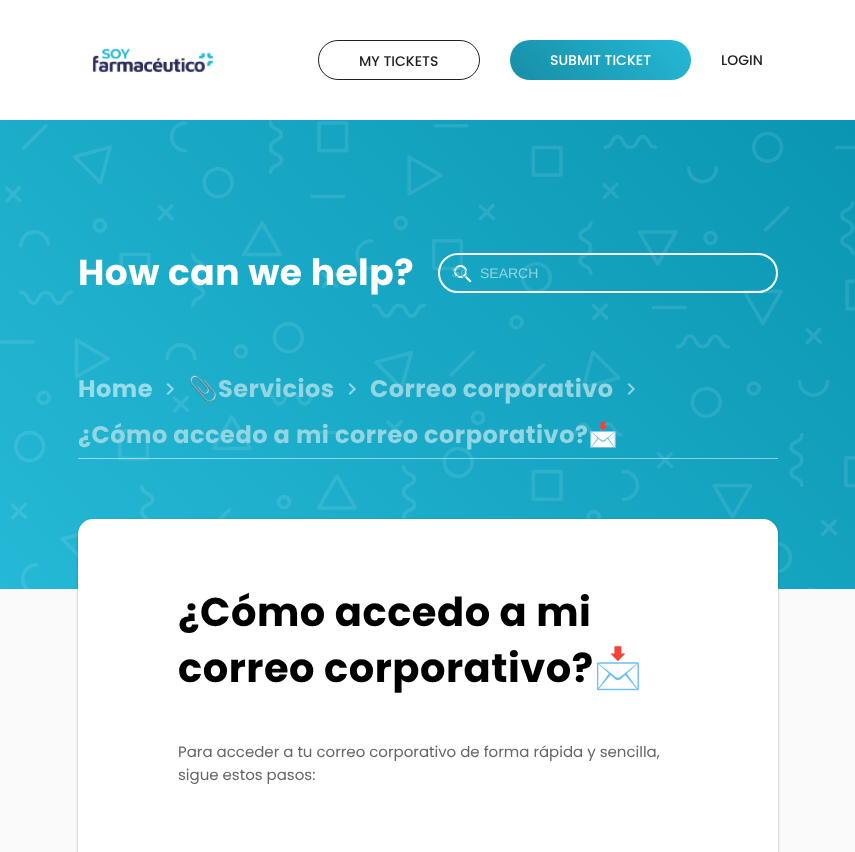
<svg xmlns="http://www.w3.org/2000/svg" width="855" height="852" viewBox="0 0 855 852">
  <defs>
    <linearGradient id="g1" gradientUnits="userSpaceOnUse" x1="545" y1="115" x2="656" y2="4.8"><stop offset="0" stop-color="#178ea6"/><stop offset="1" stop-color="#25b9d7"/></linearGradient>
    <linearGradient id="g2" gradientUnits="userSpaceOnUse" x1="97" y1="686" x2="759" y2="23"><stop offset="0" stop-color="#25b9d7"/><stop offset="1" stop-color="#0a96b2"/></linearGradient>
    <clipPath id="clip1"><rect x="451" y="262" width="20" height="20" rx="10"/></clipPath>
    <filter id="blur1" x="-50%" y="-200%" width="200%" height="500%"><feGaussianBlur stdDeviation="1.5"/></filter>
  </defs>
  <rect width="100%" height="100%" fill="#fafafa"/>
  <rect x="0" y="0" width="855" height="120" fill="#ffffff"/>
  <image x="92" y="48" width="121" height="25" href="img1.png"/>
  <rect x="318.5" y="40.5" width="161" height="39" rx="19.5" fill="none" stroke="#231f20"/>
  <text x="359" y="66" font-family="Poppins" font-size="14" font-weight="500" fill="#231f20">MY TICKETS</text>
  <rect x="510" y="40" width="181" height="40" rx="20" fill="url(#g1)"/>
  <text x="550" y="65" font-family="Poppins" font-size="14" font-weight="500" fill="#ffffff">SUBMIT TICKET</text>
  <text x="721" y="65" font-family="Poppins" font-size="14" font-weight="500" fill="#231f20">LOGIN</text>
  <rect x="0" y="120" width="855" height="469" fill="url(#g2)"/>
  <image x="0" y="120" width="855" height="469" href="img2.png"/>
  <text x="78" y="285" font-family="Poppins" font-size="36" font-weight="bold" letter-spacing="0.5" fill="#ffffff">How can we help?</text>
  <rect x="439" y="254" width="338" height="38" rx="19" fill="none" stroke="#ffffff" stroke-width="2"/>
  <image x="454" y="265" width="18" height="18" href="img3.png"/>
  <g clip-path="url(#clip1)">
    <text x="451" y="277" font-family="Liberation Sans" font-size="14" fill="#56bed2">Se</text>
  </g>
  <text x="480" y="278" font-family="Liberation Sans" font-size="14" fill="#94d5e2">SEARCH</text>
  <rect x="78" y="458" width="700" height="1" fill="#ffffff" fill-opacity="0.5"/>
  <text x="78" y="397" font-family="Poppins" font-size="24" font-weight="bold" letter-spacing="0.5" fill="#98dbe9">Home</text>
  <image x="166" y="383" width="8" height="12" href="img4.png"/>
  <text x="188" y="397" font-family="Noto Color Emoji" font-size="24" font-weight="bold" letter-spacing="0.5" fill="#94d5e2">📎</text>
  <text x="218" y="397" font-family="Poppins" font-size="24" font-weight="bold" letter-spacing="0.5" fill="#94d5e2">Servicios</text>
  <image x="348" y="383" width="8" height="12" href="img5.png"/>
  <text x="370" y="397" font-family="Poppins" font-size="24" font-weight="bold" letter-spacing="0.5" fill="#94d5e2">Correo corporativo</text>
  <image x="627" y="383" width="8" height="12" href="img6.png"/>
  <text x="78" y="443" font-family="Poppins" font-size="24" font-weight="bold" letter-spacing="0.5" fill="#94d5e2">¿Cómo accedo a mi correo corporativo?</text>
  <text x="588" y="443" font-family="Noto Color Emoji" font-size="24" font-weight="bold" letter-spacing="0.5" fill="#94d5e2">📩</text>
  <rect x="78" y="520" width="700" height="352" rx="15" fill="#000000" fill-opacity="0.25" filter="url(#blur1)"/>
  <rect x="78" y="519" width="700" height="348" rx="15" fill="#ffffff"/>
  <text x="178" y="626" font-family="Poppins" font-size="40" font-weight="bold" letter-spacing="0.5" fill="#000000">¿Cómo accedo a mi</text>
  <text x="178" y="682" font-family="Poppins" font-size="40" font-weight="bold" letter-spacing="0.5" fill="#000000">correo corporativo?</text>
  <text x="593" y="682" font-family="Noto Color Emoji" font-size="40" font-weight="bold" letter-spacing="0.5" fill="#000000">📩</text>
  <text x="178" y="757" font-family="Poppins" font-size="15" fill="#666666">Para acceder a tu correo corporativo de forma rápida y sencilla,</text>
  <text x="178" y="780" font-family="Poppins" font-size="15" fill="#666666">sigue estos pasos:</text>
</svg>
